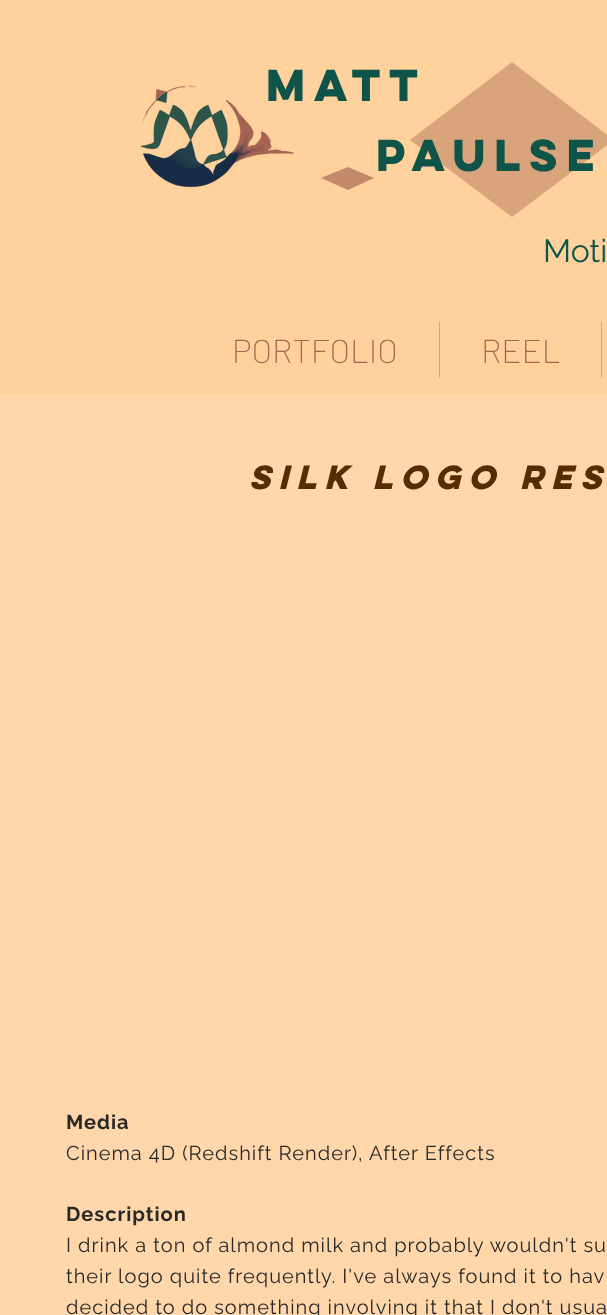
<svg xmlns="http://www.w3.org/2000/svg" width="607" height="1315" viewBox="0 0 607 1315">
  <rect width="100%" height="100%" fill="#ffd7aa"/>
  <rect x="0" y="0" width="607" height="394" fill="#ffd19c"/>
  <text x="266" y="101" font-family="'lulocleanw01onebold'" font-size="40" font-weight="bold" fill="#0f5449">Matt</text>
  <image x="140" y="85" width="154" height="103" href="img1.png"/>
  <path d="M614 140L512 217L410 140L512 62Z" fill="#d9a37c"/>
  <text x="376" y="171" font-family="'lulocleanw01onebold'" font-size="40" font-weight="bold" fill="#0f5449">Paulse</text>
  <path d="M374 178L348 190L321 178L348 167Z" fill="#c3896a"/>
  <text x="543" y="262" font-family="Raleway" font-size="32" fill="#0f5449">Moti</text>
  <text x="232" y="363" font-family="Barlow" font-size="33" font-weight="200" fill="#a66551">PORTFOLIO</text>
  <rect x="439" y="322" width="1" height="56" fill="#daa47d"/>
  <text x="481" y="363" font-family="Barlow" font-size="33" font-weight="200" fill="#a66551">REEL</text>
  <rect x="601" y="322" width="1" height="56" fill="#daa47d"/>
  <text x="249" y="489" font-family="'lulocleanw01onebold'" font-size="30" font-weight="bold" font-style="italic" letter-spacing="1.5" fill="#542d00">Silk Logo Res</text>
  <text x="66" y="1129" font-family="Raleway" font-size="20" font-weight="bold" letter-spacing="1" fill="#292929">Media</text>
  <text x="66" y="1160" font-family="Raleway" font-size="20" letter-spacing="1" fill="#292929">Cinema 4D (Redshift Render), After Effects</text>
  <text x="66" y="1221" font-family="Raleway" font-size="20" font-weight="bold" letter-spacing="1" fill="#292929">Description</text>
  <text x="66" y="1252" font-family="Raleway" font-size="20" letter-spacing="1" fill="#292929">I drink a ton of almond milk and probably wouldn't su</text>
  <text x="66" y="1283" font-family="Raleway" font-size="20" letter-spacing="1" fill="#292929">their logo quite frequently. I've always found it to hav</text>
  <text x="66" y="1314" font-family="Raleway" font-size="20" letter-spacing="1" fill="#292929">decided to do something involving it that I don't usua</text>
</svg>
